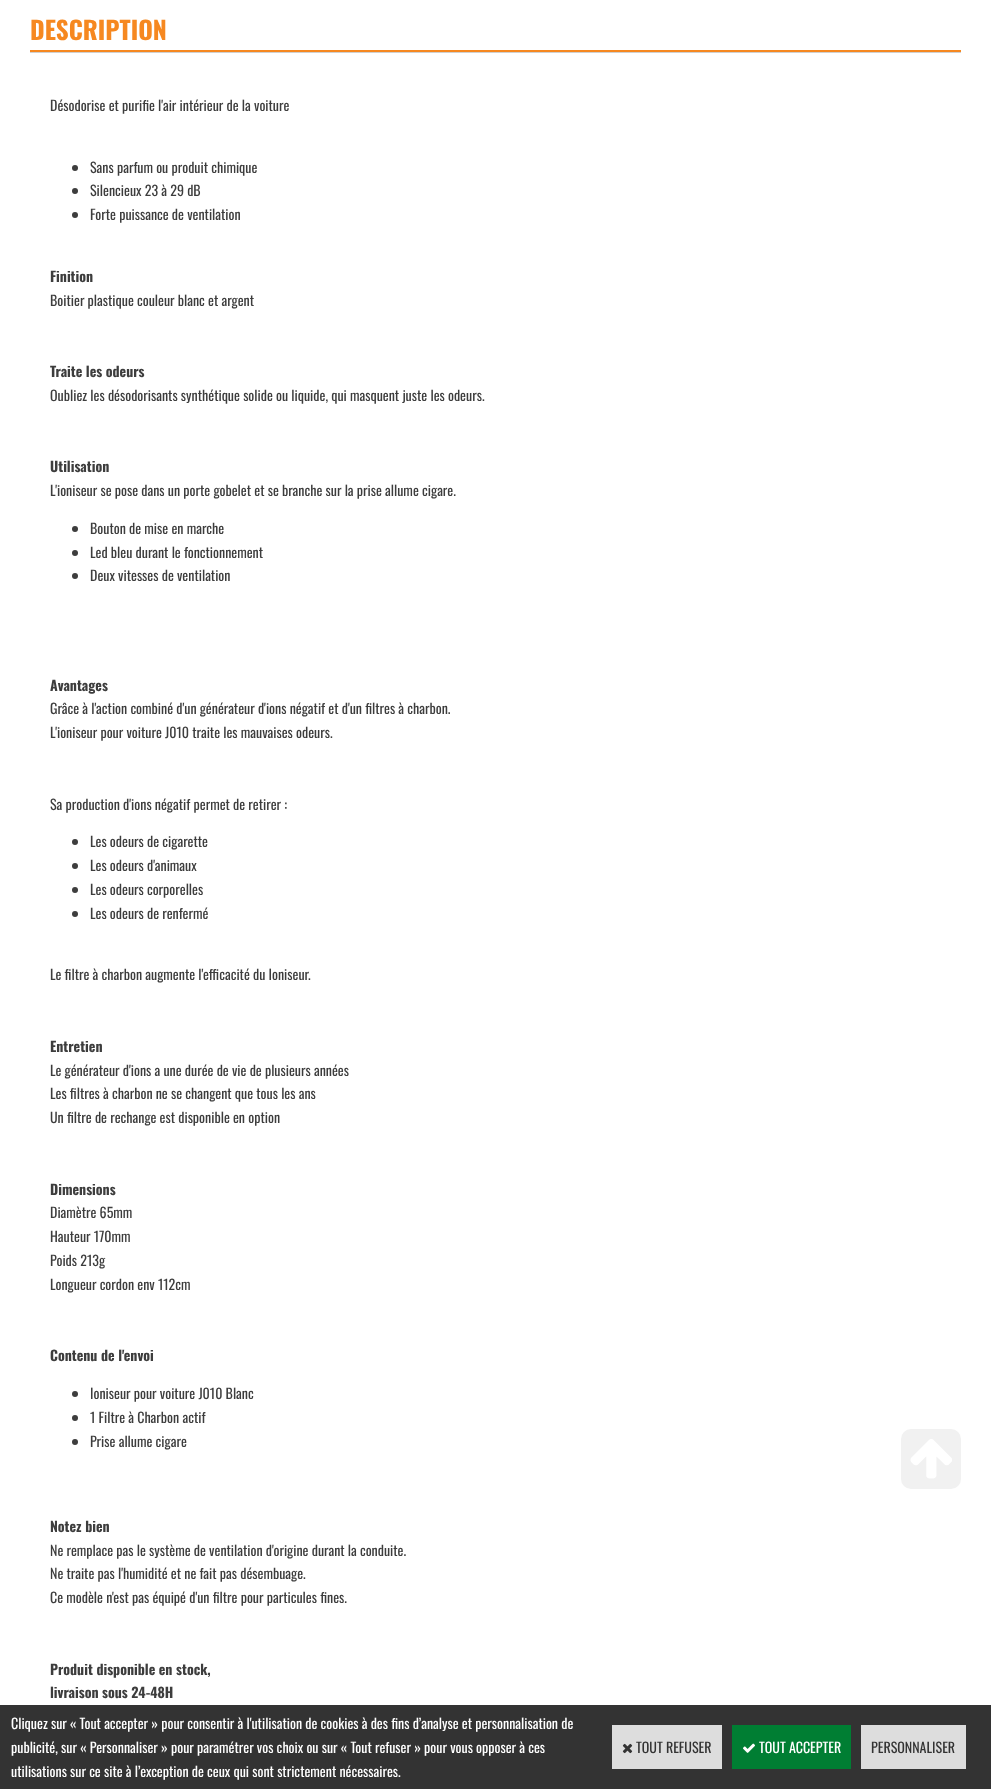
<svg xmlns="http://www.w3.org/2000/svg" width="991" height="1789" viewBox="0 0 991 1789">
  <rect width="100%" height="100%" fill="#ffffff"/>
  <rect x="30" y="50" width="931" height="2" fill="#f68820"/>
  <text x="30" y="40" font-family="Oswald" font-size="25" font-weight="bold" fill="#f68820">DESCRIPTION</text>
  <rect x="30" y="52" width="931" height="1" fill="#d0d0d0"/>
  <text x="50" y="111" font-family="Oswald" font-size="14" fill="#3d3d3d">Désodorise et purifie l'air intérieur de la voiture</text>
  <circle cx="75" cy="168" r="3" fill="#3d3d3d"/>
  <text x="90" y="173" font-family="Oswald" font-size="14" fill="#3d3d3d">Sans parfum ou produit chimique</text>
  <circle cx="75" cy="191" r="3" fill="#3d3d3d"/>
  <text x="90" y="196" font-family="Oswald" font-size="14" fill="#3d3d3d">Silencieux 23 à 29 dB</text>
  <circle cx="75" cy="215" r="3" fill="#3d3d3d"/>
  <text x="90" y="220" font-family="Oswald" font-size="14" fill="#3d3d3d">Forte puissance de ventilation</text>
  <text x="50" y="282" font-family="Oswald" font-size="14" font-weight="bold" fill="#3d3d3d">Finition</text>
  <text x="50" y="306" font-family="Oswald" font-size="14" fill="#3d3d3d">Boitier plastique couleur blanc et argent</text>
  <text x="50" y="377" font-family="Oswald" font-size="14" font-weight="bold" fill="#3d3d3d">Traite les odeurs</text>
  <text x="50" y="401" font-family="Oswald" font-size="14" fill="#3d3d3d">Oubliez les désodorisants synthétique solide ou liquide, qui masquent juste les odeurs.</text>
  <text x="50" y="472" font-family="Oswald" font-size="14" font-weight="bold" fill="#3d3d3d">Utilisation</text>
  <text x="50" y="496" font-family="Oswald" font-size="14" fill="#3d3d3d">L'ioniseur se pose dans un porte gobelet et se branche sur la prise allume cigare.</text>
  <circle cx="75" cy="529" r="3" fill="#3d3d3d"/>
  <text x="90" y="534" font-family="Oswald" font-size="14" fill="#3d3d3d">Bouton de mise en marche</text>
  <circle cx="75" cy="553" r="3" fill="#3d3d3d"/>
  <text x="90" y="558" font-family="Oswald" font-size="14" fill="#3d3d3d">Led bleu durant le fonctionnement</text>
  <circle cx="75" cy="576" r="3" fill="#3d3d3d"/>
  <text x="90" y="581" font-family="Oswald" font-size="14" fill="#3d3d3d">Deux vitesses de ventilation</text>
  <text x="50" y="691" font-family="Oswald" font-size="14" font-weight="bold" fill="#3d3d3d">Avantages</text>
  <text x="50" y="714" font-family="Oswald" font-size="14" fill="#3d3d3d">Grâce à l'action combiné d'un générateur d'ions négatif et d'un filtres à charbon.</text>
  <text x="50" y="738" font-family="Oswald" font-size="14" fill="#3d3d3d">L'ioniseur pour voiture J010 traite les mauvaises odeurs.</text>
  <text x="50" y="810" font-family="Oswald" font-size="14" fill="#3d3d3d">Sa production d'ions négatif permet de retirer :</text>
  <circle cx="75" cy="842" r="3" fill="#3d3d3d"/>
  <text x="90" y="847" font-family="Oswald" font-size="14" fill="#3d3d3d">Les odeurs de cigarette</text>
  <circle cx="75" cy="866" r="3" fill="#3d3d3d"/>
  <text x="90" y="871" font-family="Oswald" font-size="14" fill="#3d3d3d">Les odeurs d'animaux</text>
  <circle cx="75" cy="890" r="3" fill="#3d3d3d"/>
  <text x="90" y="895" font-family="Oswald" font-size="14" fill="#3d3d3d">Les odeurs corporelles</text>
  <circle cx="75" cy="914" r="3" fill="#3d3d3d"/>
  <text x="90" y="919" font-family="Oswald" font-size="14" fill="#3d3d3d">Les odeurs de renfermé</text>
  <text x="50" y="980" font-family="Oswald" font-size="14" fill="#3d3d3d">Le filtre à charbon augmente l'efficacité du Ioniseur.</text>
  <text x="50" y="1052" font-family="Oswald" font-size="14" font-weight="bold" fill="#3d3d3d">Entretien</text>
  <text x="50" y="1076" font-family="Oswald" font-size="14" fill="#3d3d3d">Le générateur d'ions a une durée de vie de plusieurs années</text>
  <text x="50" y="1099" font-family="Oswald" font-size="14" fill="#3d3d3d">Les filtres à charbon ne se changent que tous les ans</text>
  <text x="50" y="1123" font-family="Oswald" font-size="14" fill="#3d3d3d">Un filtre de rechange est disponible en option</text>
  <text x="50" y="1195" font-family="Oswald" font-size="14" font-weight="bold" fill="#3d3d3d">Dimensions</text>
  <text x="50" y="1218" font-family="Oswald" font-size="14" fill="#3d3d3d">Diamètre 65mm</text>
  <text x="50" y="1242" font-family="Oswald" font-size="14" fill="#3d3d3d">Hauteur 170mm</text>
  <text x="50" y="1266" font-family="Oswald" font-size="14" fill="#3d3d3d">Poids 213g</text>
  <text x="50" y="1290" font-family="Oswald" font-size="14" fill="#3d3d3d">Longueur cordon env 112cm</text>
  <text x="50" y="1361" font-family="Oswald" font-size="14" font-weight="bold" fill="#3d3d3d">Contenu de l'envoi</text>
  <circle cx="75" cy="1394" r="3" fill="#3d3d3d"/>
  <text x="90" y="1399" font-family="Oswald" font-size="14" fill="#3d3d3d">Ioniseur pour voiture J010 Blanc</text>
  <circle cx="75" cy="1418" r="3" fill="#3d3d3d"/>
  <text x="90" y="1423" font-family="Oswald" font-size="14" fill="#3d3d3d">1 Filtre à Charbon actif</text>
  <circle cx="75" cy="1442" r="3" fill="#3d3d3d"/>
  <text x="90" y="1447" font-family="Oswald" font-size="14" fill="#3d3d3d">Prise allume cigare</text>
  <text x="50" y="1532" font-family="Oswald" font-size="14" font-weight="bold" fill="#3d3d3d">Notez bien</text>
  <text x="50" y="1556" font-family="Oswald" font-size="14" fill="#3d3d3d">Ne remplace pas le système de ventilation d'origine durant la conduite.</text>
  <text x="50" y="1579" font-family="Oswald" font-size="14" fill="#3d3d3d">Ne traite pas l'humidité et ne fait pas désembuage.</text>
  <text x="50" y="1603" font-family="Oswald" font-size="14" fill="#3d3d3d">Ce modèle n'est pas équipé d'un filtre pour particules fines.</text>
  <text x="50" y="1675" font-family="Oswald" font-size="14" font-weight="bold" fill="#3d3d3d">Produit disponible en stock,</text>
  <text x="50" y="1698" font-family="Oswald" font-size="14" font-weight="bold" fill="#3d3d3d">livraison sous 24-48H</text>
  <rect x="901" y="1429" width="60" height="60" rx="10" fill="#f1f1f1"/>
  <image x="910" y="1439" width="42" height="40" href="img1.png"/>
  <rect x="0" y="1705" width="991" height="84" fill="#333333"/>
  <text x="11" y="1729" font-family="Oswald" font-size="14" fill="#ffffff">Cliquez sur « Tout accepter » pour consentir à l'utilisation de cookies à des fins d’analyse et personnalisation de</text>
  <text x="11" y="1753" font-family="Oswald" font-size="14" fill="#ffffff">publicité, sur « Personnaliser » pour paramétrer vos choix ou sur « Tout refuser » pour vous opposer à ces</text>
  <text x="11" y="1777" font-family="Oswald" font-size="14" fill="#ffffff">utilisations sur ce site à l’exception de ceux qui sont strictement nécessaires.</text>
  <rect x="612" y="1725" width="110" height="44" fill="#dddddd"/>
  <image x="622" y="1743" width="11" height="11" href="img2.png"/>
  <text x="636" y="1753" font-family="Oswald" font-size="14" fill="#333333">TOUT REFUSER</text>
  <rect x="732" y="1725" width="119" height="44" fill="#007e33"/>
  <image x="743" y="1743" width="12" height="10" href="img3.png"/>
  <text x="759" y="1753" font-family="Oswald" font-size="14" fill="#ffffff">TOUT ACCEPTER</text>
  <rect x="861" y="1725" width="105" height="44" fill="#dddddd"/>
  <text x="871" y="1753" font-family="Oswald" font-size="14" fill="#333333">PERSONNALISER</text>
</svg>
